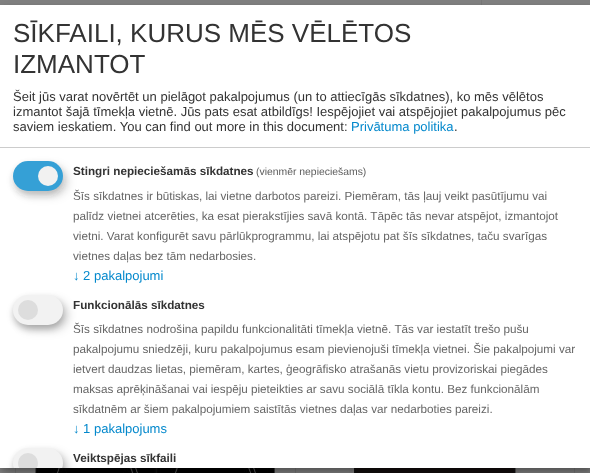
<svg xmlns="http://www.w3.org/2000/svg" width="590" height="473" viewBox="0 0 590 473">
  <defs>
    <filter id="blur1" x="-50%" y="-200%" width="200%" height="500%"><feGaussianBlur stdDeviation="5"/></filter>
    <filter id="blur2" x="-50%" y="-200%" width="200%" height="500%"><feGaussianBlur stdDeviation="3"/></filter>
    <clipPath id="clip1"><rect x="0" y="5" width="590" height="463"/></clipPath>
    <clipPath id="clip2"><rect x="0" y="5" width="590" height="463"/></clipPath>
  </defs>
  <rect width="100%" height="100%" fill="#808080"/>
  <rect x="481" y="0" width="1" height="5" fill="#777777"/>
  <rect x="15.5" y="351.5" width="279" height="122" fill="none" stroke="#757575"/>
  <image x="35" y="468" width="240" height="5" href="img1.png"/>
  <rect x="294.5" y="350.5" width="281" height="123" fill="none" stroke="#808080"/>
  <rect x="295.5" y="351.5" width="279" height="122" fill="none" stroke="#757575"/>
  <image x="347" y="468" width="176" height="5" href="img2.png"/>
  <rect x="5" y="10" width="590" height="463" fill="#000000" fill-opacity="0.19" filter="url(#blur1)"/>
  <rect x="0" y="9" width="590" height="463" fill="#000000" fill-opacity="0.2" filter="url(#blur2)"/>
  <rect x="0" y="5" width="590" height="463" fill="#ffffff"/>
  <rect x="0" y="147" width="590" height="1" fill="#cccccc"/>
  <text x="13" y="42" font-family="Liberation Sans" font-size="26" fill="#333333">SĪKFAILI, KURUS MĒS VĒLĒTOS</text>
  <text x="13" y="73" font-family="Liberation Sans" font-size="26" fill="#333333">IZMANTOT</text>
  <text x="13" y="101" font-family="Liberation Sans" font-size="13" fill="#333333">Šeit jūs varat novērtēt un pielāgot pakalpojumus (un to attiecīgās sīkdatnes), ko mēs vēlētos</text>
  <text x="13" y="116" font-family="Liberation Sans" font-size="13" fill="#333333">izmantot šajā tīmekļa vietnē. Jūs pats esat atbildīgs! Iespējojiet vai atspējojiet pakalpojumus pēc</text>
  <text x="13" y="131" font-family="Liberation Sans" font-size="13" fill="#333333">saviem ieskatiem. You can find out more in this document:</text>
  <text x="351" y="131" font-family="Liberation Sans" font-size="13" fill="#0388cc">Privātuma politika</text>
  <text x="454" y="131" font-family="Liberation Sans" font-size="13" fill="#333333">.</text>
  <rect x="18" y="166" width="50" height="30" rx="15" fill="#000000" fill-opacity="0.15" filter="url(#blur1)"/>
  <rect x="13" y="165" width="50" height="30" rx="15" fill="#333333" fill-opacity="0.2" filter="url(#blur2)"/>
  <rect x="13" y="161" width="50" height="30" rx="15" fill="#35a0d6"/>
  <circle cx="48" cy="176" r="10" fill="#f1f1f1"/>
  <text x="73" y="175" font-family="Liberation Sans" font-size="11.7" font-weight="bold" fill="#333333">Stingri nepieciešamās sīkdatnes</text>
  <text x="256" y="175" font-family="Liberation Sans" font-size="10.4" fill="#5c5c5c">(vienmēr nepieciešams)</text>
  <text x="73" y="200" font-family="Liberation Sans" font-size="11.7" fill="#666666">Šīs sīkdatnes ir būtiskas, lai vietne darbotos pareizi. Piemēram, tās ļauj veikt pasūtījumu vai</text>
  <text x="73" y="220" font-family="Liberation Sans" font-size="11.7" fill="#666666">palīdz vietnei atcerēties, ka esat pierakstījies savā kontā. Tāpēc tās nevar atspējot, izmantojot</text>
  <text x="73" y="240" font-family="Liberation Sans" font-size="11.7" fill="#666666">vietni. Varat konfigurēt savu pārlūkprogrammu, lai atspējotu pat šīs sīkdatnes, taču svarīgas</text>
  <text x="73" y="260" font-family="Liberation Sans" font-size="11.7" fill="#666666">vietnes daļas bez tām nedarbosies.</text>
  <text x="73" y="280" font-family="Liberation Sans" font-size="13" fill="#0388cc">↓ 2 pakalpojumi</text>
  <rect x="18" y="300" width="50" height="30" rx="15" fill="#000000" fill-opacity="0.19" filter="url(#blur1)"/>
  <rect x="13" y="299" width="50" height="30" rx="15" fill="#000000" fill-opacity="0.2" filter="url(#blur2)"/>
  <rect x="13" y="295" width="50" height="30" rx="15" fill="#f2f2f2"/>
  <circle cx="28" cy="310" r="10" fill="#dddddd"/>
  <text x="73" y="309" font-family="Liberation Sans" font-size="11.7" font-weight="bold" fill="#333333">Funkcionālās sīkdatnes</text>
  <text x="73" y="333" font-family="Liberation Sans" font-size="11.7" fill="#666666">Šīs sīkdatnes nodrošina papildu funkcionalitāti tīmekļa vietnē. Tās var iestatīt trešo pušu</text>
  <text x="73" y="353" font-family="Liberation Sans" font-size="11.7" fill="#666666">pakalpojumu sniedzēji, kuru pakalpojumus esam pievienojuši tīmekļa vietnei. Šie pakalpojumi var</text>
  <text x="73" y="373" font-family="Liberation Sans" font-size="11.7" fill="#666666">ietvert daudzas lietas, piemēram, kartes, ģeogrāfisko atrašanās vietu provizoriskai piegādes</text>
  <text x="73" y="393" font-family="Liberation Sans" font-size="11.7" fill="#666666">maksas aprēķināšanai vai iespēju pieteikties ar savu sociālā tīkla kontu. Bez funkcionālām</text>
  <text x="73" y="413" font-family="Liberation Sans" font-size="11.7" fill="#666666">sīkdatnēm ar šiem pakalpojumiem saistītās vietnes daļas var nedarboties pareizi.</text>
  <text x="73" y="433" font-family="Liberation Sans" font-size="13" fill="#0388cc">↓ 1 pakalpojums</text>
  <g clip-path="url(#clip1)">
    <rect x="18" y="453" width="50" height="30" rx="15" fill="#000000" fill-opacity="0.19" filter="url(#blur1)"/>
    <rect x="13" y="452" width="50" height="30" rx="15" fill="#000000" fill-opacity="0.2" filter="url(#blur2)"/>
  </g>
  <g clip-path="url(#clip2)">
    <rect x="13" y="448" width="50" height="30" rx="15" fill="#f2f2f2"/>
    <circle cx="28" cy="463" r="10" fill="#dddddd"/>
  </g>
  <text x="73" y="462" font-family="Liberation Sans" font-size="11.7" font-weight="bold" fill="#333333">Veiktspējas sīkfaili</text>
</svg>
